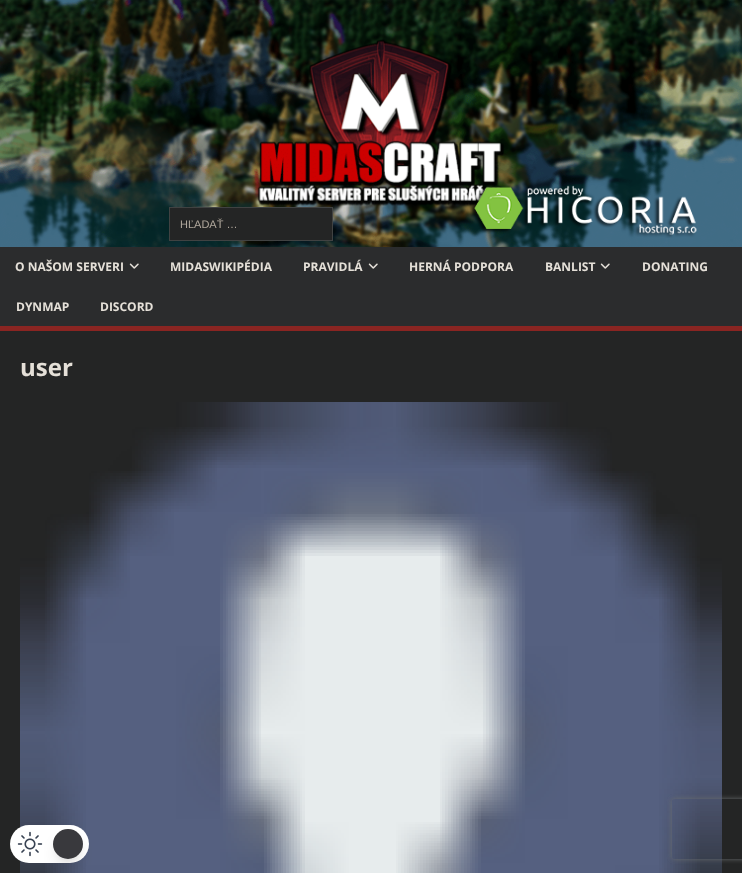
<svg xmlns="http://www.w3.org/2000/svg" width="742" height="873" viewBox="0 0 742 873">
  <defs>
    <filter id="blur1" x="-50%" y="-200%" width="200%" height="500%"><feGaussianBlur stdDeviation="3"/></filter>
    <filter id="blur2" x="-50%" y="-200%" width="200%" height="500%"><feGaussianBlur stdDeviation="7.5"/></filter>
    <clipPath id="clip1"><path d="M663 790H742V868H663ZM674 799H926C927 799 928 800 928 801V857C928 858 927 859 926 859H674C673 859 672 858 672 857V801C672 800 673 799 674 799Z" clip-rule="evenodd"/></clipPath>
    <filter id="blur3" x="-50%" y="-200%" width="200%" height="500%"><feGaussianBlur stdDeviation="2.5"/></filter>
  </defs>
  <rect width="100%" height="100%" fill="#2b2c2d"/>
  <image x="0" y="0" width="742" height="247" href="img1.png"/>
  <image x="470" y="185" width="227" height="53" href="img2.png"/>
  <rect x="0" y="326" width="742" height="5" fill="#8a2522"/>
  <rect x="169" y="187" width="1" height="20" fill="#3a3d3d" fill-opacity="0.1"/>
  <rect x="169.5" y="207.5" width="163" height="33" fill="#242525" stroke="#404242"/>
  <text x="180" y="228" font-family="Liberation Sans" font-size="11" fill="#b2aa9e">HĽADAŤ …</text>
  <text x="15" y="271" font-family="Open Sans" font-size="12" font-weight="bold" fill="#e5e0d8">O NAŠOM SERVERI</text>
  <image x="129" y="263" width="10" height="6" href="img3.png"/>
  <text x="170" y="271" font-family="Open Sans" font-size="12" font-weight="bold" fill="#e5e0d8">MIDASWIKIPÉDIA</text>
  <text x="303" y="271" font-family="Open Sans" font-size="12" font-weight="bold" fill="#e5e0d8">PRAVIDLÁ</text>
  <image x="368" y="263" width="10" height="6" href="img3.png"/>
  <text x="409" y="271" font-family="Open Sans" font-size="12" font-weight="bold" fill="#e5e0d8">HERNÁ PODPORA</text>
  <text x="545" y="271" font-family="Open Sans" font-size="12" font-weight="bold" fill="#e5e0d8">BANLIST</text>
  <image x="600" y="263" width="10" height="6" href="img3.png"/>
  <text x="642" y="271" font-family="Open Sans" font-size="12" font-weight="bold" fill="#e5e0d8">DONATING</text>
  <text x="16" y="311" font-family="Open Sans" font-size="12" font-weight="bold" fill="#e5e0d8">DYNMAP</text>
  <text x="100" y="311" font-family="Open Sans" font-size="12" font-weight="bold" fill="#e5e0d8">DISCORD</text>
  <rect x="0" y="331" width="742" height="542" fill="#242525"/>
  <text x="20" y="376" font-family="Open Sans" font-size="24" font-weight="bold" fill="#e5e0d8">user</text>
  <image x="20" y="402" width="702" height="471" href="img4.png"/>
  <rect x="10" y="825" width="79" height="38" rx="19" fill="#ffffff"/>
  <image x="17" y="831" width="26" height="26" href="img5.png"/>
  <rect x="57" y="837" width="22" height="22" rx="11" fill="#000000" fill-opacity="0.1" filter="url(#blur1)"/>
  <rect x="56" y="842" width="24" height="24" rx="12" fill="#000000" fill-opacity="0.1" filter="url(#blur2)"/>
  <circle cx="68" cy="844" r="15" fill="#39393d"/>
  <g clip-path="url(#clip1)">
    <rect x="672" y="799" width="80" height="60" rx="2" fill="#676c6d" filter="url(#blur3)"/>
  </g>
</svg>
